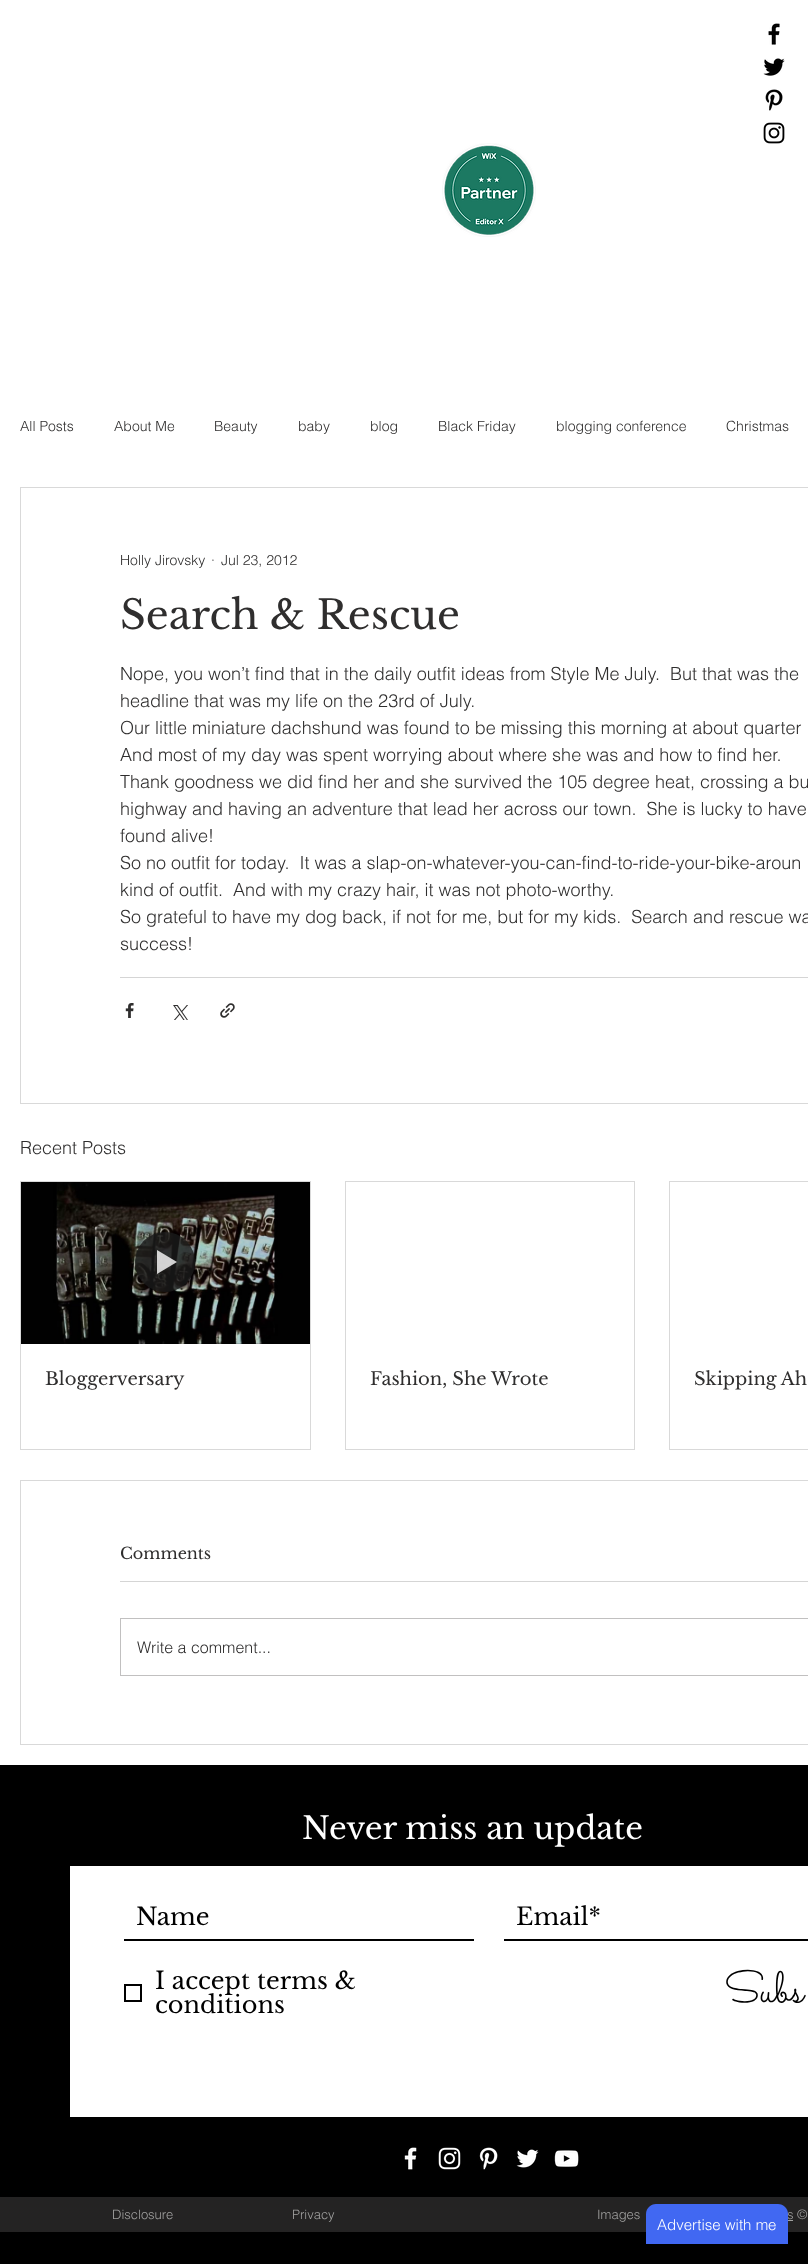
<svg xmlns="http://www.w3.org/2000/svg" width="808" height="2264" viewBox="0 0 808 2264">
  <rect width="100%" height="100%" fill="#ffffff"/>
  <image x="768" y="23" width="12" height="22" href="img1.png"/>
  <image x="763" y="58" width="22" height="18" href="img2.png"/>
  <image x="765" y="89" width="18" height="22" href="img3.png"/>
  <image x="763" y="122" width="22" height="22" href="img4.png"/>
  <image x="442" y="143" width="94" height="94" href="img5.png"/>
  <text x="20" y="431" font-family="helvetica" font-size="14" font-weight="300" fill="#2f2e2e">All Posts</text>
  <text x="114" y="431" font-family="helvetica" font-size="14" font-weight="300" fill="#2f2e2e">About Me</text>
  <text x="214" y="431" font-family="helvetica" font-size="14" font-weight="300" fill="#2f2e2e">Beauty</text>
  <text x="298" y="431" font-family="helvetica" font-size="14" font-weight="300" fill="#2f2e2e">baby</text>
  <text x="370" y="431" font-family="helvetica" font-size="14" font-weight="300" fill="#2f2e2e">blog</text>
  <text x="438" y="431" font-family="helvetica" font-size="14" font-weight="300" fill="#2f2e2e">Black Friday</text>
  <text x="556" y="431" font-family="helvetica" font-size="14" font-weight="300" fill="#2f2e2e">blogging conference</text>
  <text x="726" y="431" font-family="helvetica" font-size="14" font-weight="300" fill="#2f2e2e">Christmas</text>
  <rect x="20.5" y="487.5" width="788" height="616" fill="none" stroke="#d9d9d9"/>
  <text x="120" y="565" font-family="helvetica" font-size="14" font-weight="300" fill="#2f2e2e">Holly Jirovsky</text>
  <text x="211" y="565" font-family="helvetica" font-size="14" font-weight="300" fill="#2f2e2e">·</text>
  <text x="221" y="565" font-family="helvetica" font-size="14" font-weight="300" fill="#2f2e2e">Jul 23, 2012</text>
  <text x="120" y="629" font-family="Libre Baskerville" font-size="40" fill="#2f2e2e">Search &amp; Rescue</text>
  <text x="120" y="680" font-family="helvetica" font-size="18" font-weight="300" fill="#2f2e2e" xml:space="preserve">Nope, you won’t find that in the daily outfit ideas from Style Me July.  But that was the</text>
  <text x="120" y="707" font-family="helvetica" font-size="18" font-weight="300" fill="#2f2e2e">headline that was my life on the 23rd of July.</text>
  <text x="120" y="734" font-family="helvetica" font-size="18" font-weight="300" fill="#2f2e2e">Our little miniature dachshund was found to be missing this morning at about quarter</text>
  <text x="120" y="761" font-family="helvetica" font-size="18" font-weight="300" fill="#2f2e2e">And most of my day was spent worrying about where she was and how to find her.</text>
  <text x="120" y="788" font-family="helvetica" font-size="18" font-weight="300" fill="#2f2e2e">Thank goodness we did find her and she survived the 105 degree heat, crossing a bu</text>
  <text x="120" y="815" font-family="helvetica" font-size="18" font-weight="300" fill="#2f2e2e" xml:space="preserve">highway and having an adventure that lead her across our town.  She is lucky to have</text>
  <text x="120" y="842" font-family="helvetica" font-size="18" font-weight="300" fill="#2f2e2e">found alive!</text>
  <text x="120" y="869" font-family="helvetica" font-size="18" font-weight="300" fill="#2f2e2e" xml:space="preserve">So no outfit for today.  It was a slap-on-whatever-you-can-find-to-ride-your-bike-aroun</text>
  <text x="120" y="896" font-family="helvetica" font-size="18" font-weight="300" fill="#2f2e2e" xml:space="preserve">kind of outfit.  And with my crazy hair, it was not photo-worthy.</text>
  <text x="120" y="923" font-family="helvetica" font-size="18" font-weight="300" fill="#2f2e2e" xml:space="preserve">So grateful to have my dog back, if not for me, but for my kids.  Search and rescue wa</text>
  <text x="120" y="950" font-family="helvetica" font-size="18" font-weight="300" fill="#2f2e2e">success!</text>
  <rect x="120" y="977" width="688" height="1" fill="#d5d5d5"/>
  <image x="125" y="1003" width="9" height="15" href="img6.png"/>
  <image x="173" y="1005" width="15" height="15" href="img7.png"/>
  <image x="220" y="1003" width="15" height="15" href="img8.png"/>
  <text x="20" y="1154" font-family="helvetica" font-size="18" font-weight="300" fill="#2f2e2e">Recent Posts</text>
  <rect x="20.5" y="1181.5" width="290" height="268" fill="none" stroke="#d9d9d9"/>
  <image x="21" y="1182" width="289" height="162" href="img9.png"/>
  <circle cx="165" cy="1262" r="30" fill="#1a1a1a" fill-opacity="0.8"/>
  <path d="M157 1250V1274L177 1262Z" fill="#ffffff" fill-opacity="0.8"/>
  <text x="45" y="1385" font-family="Libre Baskerville" font-size="18" fill="#2f2e2e">Bloggerversary</text>
  <rect x="345.5" y="1181.5" width="289" height="268" fill="none" stroke="#d9d9d9"/>
  <text x="370" y="1385" font-family="Libre Baskerville" font-size="18" fill="#2f2e2e">Fashion, She Wrote</text>
  <rect x="669.5" y="1181.5" width="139" height="268" fill="none" stroke="#d9d9d9"/>
  <text x="694" y="1385" font-family="Libre Baskerville" font-size="18" fill="#2f2e2e">Skipping Ah</text>
  <rect x="20.5" y="1480.5" width="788" height="264" fill="none" stroke="#d9d9d9"/>
  <text x="120" y="1559" font-family="Libre Baskerville" font-size="16" fill="#2f2e2e">Comments</text>
  <rect x="120" y="1581" width="688" height="1" fill="#d5d5d5"/>
  <rect x="120.5" y="1618.5" width="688" height="57" fill="none" stroke="#c1c0c0"/>
  <text x="137" y="1653" font-family="helvetica" font-size="16" font-weight="300" fill="#2f2e2e">Write a comment...</text>
  <rect x="0" y="1765" width="808" height="499" fill="#000000"/>
  <text x="302" y="1839" font-family="Libre Baskerville" font-size="31" fill="#ffffff">Never miss an update</text>
  <rect x="70" y="1866" width="738" height="251" fill="#ffffff"/>
  <rect x="124" y="1939" width="350" height="2" fill="#000000"/>
  <text x="136" y="1925" font-family="Libre Baskerville" font-size="24" fill="#000000">Name</text>
  <rect x="504" y="1939" width="304" height="2" fill="#000000"/>
  <text x="516" y="1925" font-family="Libre Baskerville" font-size="24" fill="#000000">Email*</text>
  <rect x="125" y="1985" width="16" height="16" fill="none" stroke="#000000" stroke-width="2"/>
  <text x="155" y="1989" font-family="Libre Baskerville" font-size="24" fill="#000000">I accept terms &amp;</text>
  <text x="155" y="2013" font-family="Libre Baskerville" font-size="24" fill="#000000">conditions</text>
  <text x="724" y="2002" font-family="Sacramento" font-size="44" fill="#000000">Subs</text>
  <image x="404" y="2147" width="13" height="23" href="img10.png"/>
  <image x="438" y="2147" width="23" height="23" href="img11.png"/>
  <image x="479" y="2147" width="19" height="23" href="img12.png"/>
  <image x="516" y="2149" width="23" height="19" href="img13.png"/>
  <image x="554" y="2150" width="25" height="17" href="img14.png"/>
  <rect x="0" y="2197" width="808" height="35" fill="#242323"/>
  <text x="112" y="2219" font-family="helvetica" font-size="13" font-weight="300" fill="#a0a09f">Disclosure</text>
  <text x="292" y="2219" font-family="helvetica" font-size="13" font-weight="300" fill="#a0a09f">Privacy</text>
  <text x="597" y="2219" font-family="helvetica" font-size="13" font-weight="300" fill="#a0a09f">Images</text>
  <text x="787" y="2219" font-family="helvetica" font-size="13" font-weight="300" fill="#a0a09f">s ©</text>
  <rect x="788" y="2220" width="5" height="1" fill="#a0a09f"/>
  <path d="M656 2204H778C783.5 2204 788 2208.5 788 2214V2244H646V2214C646 2208.5 650.5 2204 656 2204Z" fill="#4168f2"/>
  <text x="657" y="2230" font-family="helvetica" font-size="15" font-weight="300" fill="#ffffff">Advertise with me</text>
</svg>
